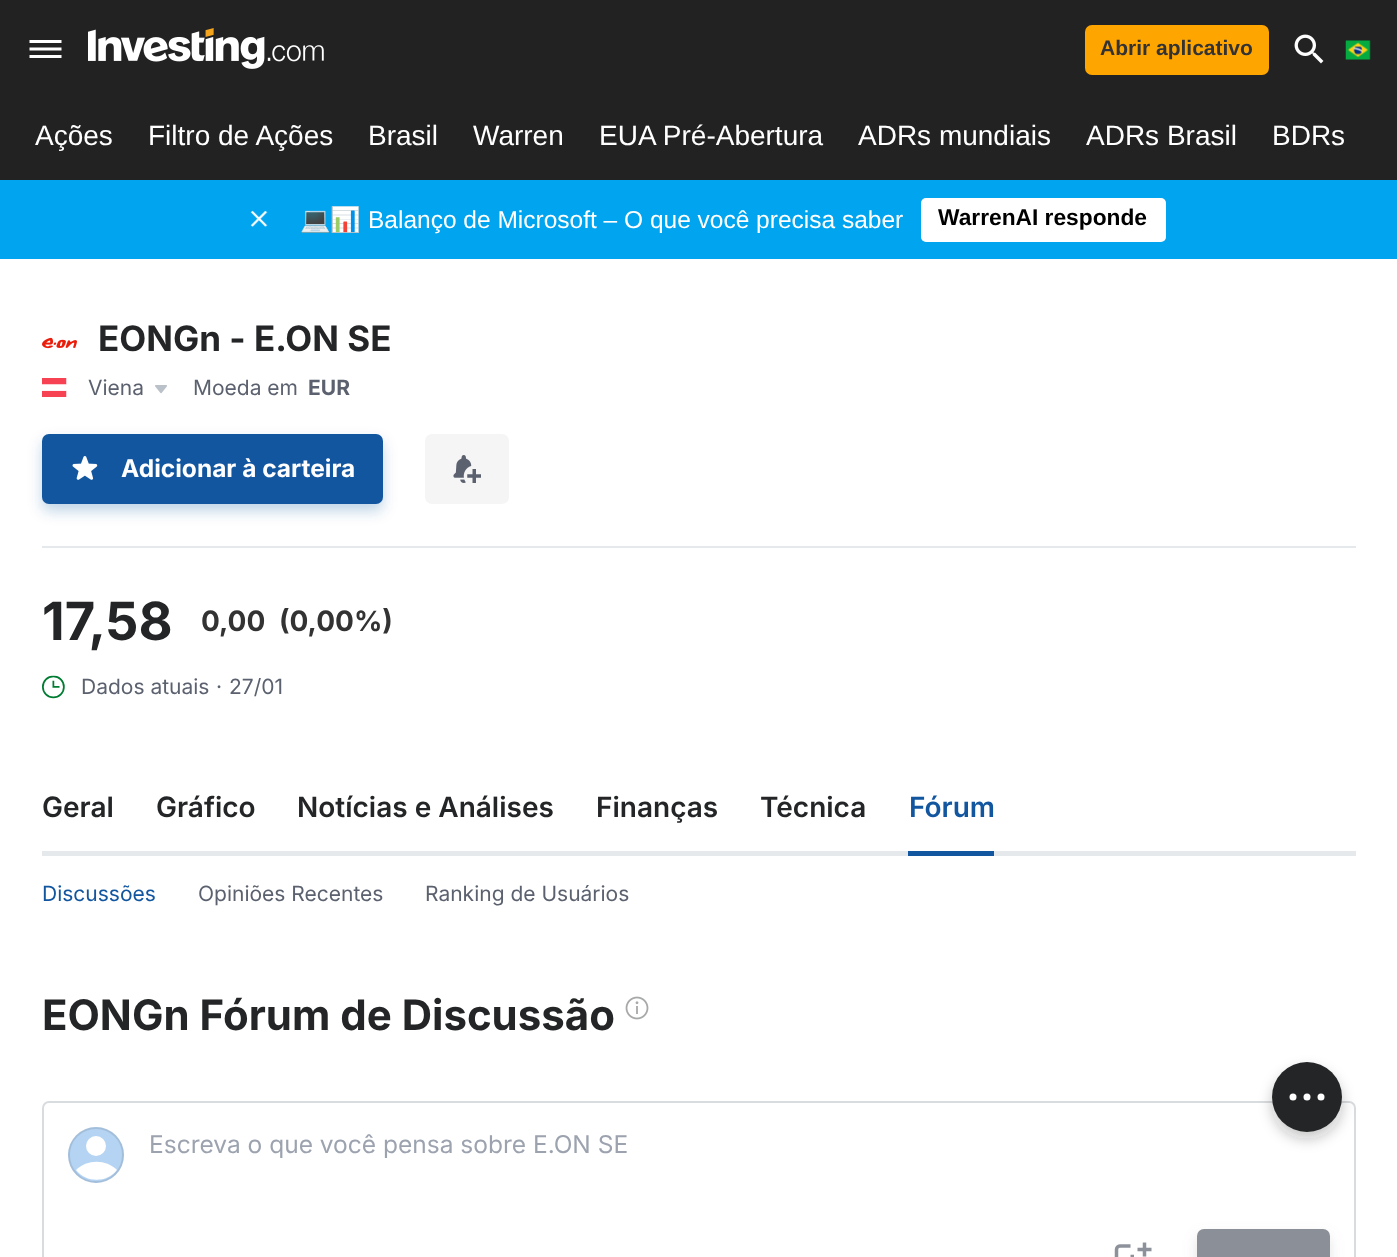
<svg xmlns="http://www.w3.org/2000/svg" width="1397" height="1257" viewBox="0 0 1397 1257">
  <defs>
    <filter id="blur1" x="-50%" y="-200%" width="200%" height="500%"><feGaussianBlur stdDeviation="7"/></filter>
  </defs>
  <rect width="100%" height="100%" fill="#ffffff"/>
  <rect x="0" y="0" width="1397" height="180" fill="#222222"/>
  <path d="M29.5 58H61.5V55H29.5ZM29.5 50.5H61.5V47.5H29.5ZM29.5 40V43H61.5V40Z" fill="#ffffff" fill-rule="evenodd"/>
  <image x="88" y="28" width="236" height="41" href="img1.png"/>
  <rect x="1086" y="26" width="182" height="48" rx="6" fill="#ffa500" stroke="#ffa500" stroke-width="2"/>
  <text x="1100" y="55" font-family="Liberation Sans" font-size="21" font-weight="bold" fill="#333333">Abrir aplicativo</text>
  <image x="1294" y="34" width="30" height="30" href="img2.png"/>
  <image x="1345" y="40" width="26" height="20" href="img3.png"/>
  <text x="35" y="145" font-family="Liberation Sans" font-size="28" fill="#ffffff">Ações</text>
  <text x="148" y="145" font-family="Liberation Sans" font-size="28" fill="#ffffff">Filtro de Ações</text>
  <text x="368" y="145" font-family="Liberation Sans" font-size="28" fill="#ffffff">Brasil</text>
  <text x="473" y="145" font-family="Liberation Sans" font-size="28" fill="#ffffff">Warren</text>
  <text x="599" y="145" font-family="Liberation Sans" font-size="28" fill="#ffffff">EUA Pré-Abertura</text>
  <text x="858" y="145" font-family="Liberation Sans" font-size="28" fill="#ffffff">ADRs mundiais</text>
  <text x="1086" y="145" font-family="Liberation Sans" font-size="28" fill="#ffffff">ADRs Brasil</text>
  <text x="1272" y="145" font-family="Liberation Sans" font-size="28" fill="#ffffff">BDRs</text>
  <rect x="0" y="180" width="1397" height="79" fill="#00a4ef"/>
  <image x="250" y="210" width="18" height="17" href="img4.png"/>
  <text x="300" y="228" font-family="Noto Color Emoji" font-size="24.5" fill="#ffffff">💻📊</text>
  <text x="368" y="228" font-family="Liberation Sans" font-size="24.5" fill="#ffffff">Balanço de Microsoft – O que você precisa saber</text>
  <rect x="921" y="198" width="245" height="44" rx="5" fill="#ffffff"/>
  <text x="938" y="225" font-family="Liberation Sans" font-size="22.75" font-weight="bold" fill="#000000">WarrenAI responde</text>
  <image x="42" y="337" width="35" height="12" href="img5.png"/>
  <text x="98" y="351" font-family="Inter" font-size="35" font-weight="bold" fill="#232526">EONGn - E.ON SE</text>
  <image x="42" y="378" width="25" height="19" href="img6.png"/>
  <text x="88" y="395" font-family="Inter" font-size="21" fill="#5b616e">Viena</text>
  <image x="155" y="385" width="12" height="9" href="img7.png"/>
  <text x="193" y="395" font-family="Inter" font-size="21" fill="#5b616e">Moeda em</text>
  <text x="308" y="395" font-family="Inter" font-size="21" font-weight="bold" fill="#5b616e">EUR</text>
  <rect x="42" y="441" width="341" height="70" rx="7" fill="#1256a0" fill-opacity="0.25" filter="url(#blur1)"/>
  <rect x="42" y="434" width="341" height="70" rx="7" fill="#1256a0"/>
  <image x="72" y="456" width="26" height="24" href="img8.png"/>
  <text x="121" y="477" font-family="Inter" font-size="24.5" font-weight="bold" fill="#ffffff">Adicionar à carteira</text>
  <rect x="425" y="434" width="84" height="70" rx="7" fill="#f5f5f5"/>
  <image x="453" y="455" width="28" height="28" href="img9.png"/>
  <rect x="42" y="546" width="1314" height="2" fill="#e6e9eb"/>
  <text x="42" y="640" font-family="Inter" font-size="52.5" font-weight="bold" fill="#232526">17,58</text>
  <text x="201" y="631" font-family="Inter" font-size="28" font-weight="bold" fill="#333333">0,00</text>
  <text x="279" y="631" font-family="Inter" font-size="28" font-weight="bold" fill="#333333">(0,00%)</text>
  <image x="42" y="675" width="23" height="24" href="img10.png"/>
  <text x="81" y="694" font-family="Inter" font-size="21" fill="#5b616e">Dados atuais</text>
  <text x="216" y="694" font-family="Inter" font-size="21" fill="#5b616e">·</text>
  <text x="229" y="694" font-family="Inter" font-size="21" fill="#5b616e">27/01</text>
  <rect x="42" y="851" width="1314" height="5" fill="#e6e9eb"/>
  <text x="42" y="817" font-family="Inter" font-size="28" font-weight="600" fill="#232526">Geral</text>
  <text x="156" y="817" font-family="Inter" font-size="28" font-weight="600" fill="#232526">Gráfico</text>
  <text x="297" y="817" font-family="Inter" font-size="28" font-weight="600" fill="#232526">Notícias e Análises</text>
  <text x="596" y="817" font-family="Inter" font-size="28" font-weight="600" fill="#232526">Finanças</text>
  <text x="760" y="817" font-family="Inter" font-size="28" font-weight="600" fill="#232526">Técnica</text>
  <rect x="908" y="851" width="86" height="5" fill="#1256a0"/>
  <text x="909" y="817" font-family="Inter" font-size="28" font-weight="600" fill="#1256a0">Fórum</text>
  <text x="42" y="901" font-family="Inter" font-size="21" fill="#1256a0">Discussões</text>
  <text x="198" y="901" font-family="Inter" font-size="21" fill="#5b616e">Opiniões Recentes</text>
  <text x="425" y="901" font-family="Inter" font-size="21" fill="#5b616e">Ranking de Usuários</text>
  <text x="42" y="1030" font-family="Inter" font-size="42" font-weight="bold" fill="#232526">EONGn Fórum de Discussão</text>
  <image x="625" y="996" width="24" height="24" href="img11.png"/>
  <rect x="43" y="1102" width="1312" height="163" rx="6" fill="none" stroke="#d9dcdf" stroke-width="2"/>
  <circle cx="96" cy="1155" r="28" fill="#b5d4f3"/>
  <path d="M76 1170C87 1159 106 1159 117 1170C107 1183 86 1183 76 1170" fill="#ffffff" fill-rule="evenodd"/>
  <circle cx="96" cy="1146" r="10" fill="#ffffff"/>
  <circle cx="96" cy="1155" r="27" fill="none" stroke="#000000" stroke-opacity="0.1" stroke-width="2"/>
  <text x="149" y="1153" font-family="Inter" font-size="24.5" fill="#9ca3af">Escreva o que você pensa sobre E.ON SE</text>
  <image x="1114" y="1242" width="38" height="15" href="img12.png"/>
  <rect x="1197" y="1236" width="133" height="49" rx="7" fill="#8b8f98" fill-opacity="0.25" filter="url(#blur1)"/>
  <rect x="1197" y="1229" width="133" height="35" rx="7" fill="#8b8f98"/>
  <rect x="1272" y="1069" width="70" height="70" rx="35" fill="#232526" fill-opacity="0.25" filter="url(#blur1)"/>
  <circle cx="1307" cy="1097" r="35" fill="#232526"/>
  <circle cx="1321" cy="1097" r="3.5" fill="#ffffff"/>
  <circle cx="1293" cy="1097" r="3.5" fill="#ffffff"/>
  <circle cx="1307" cy="1097" r="3.5" fill="#ffffff"/>
</svg>
